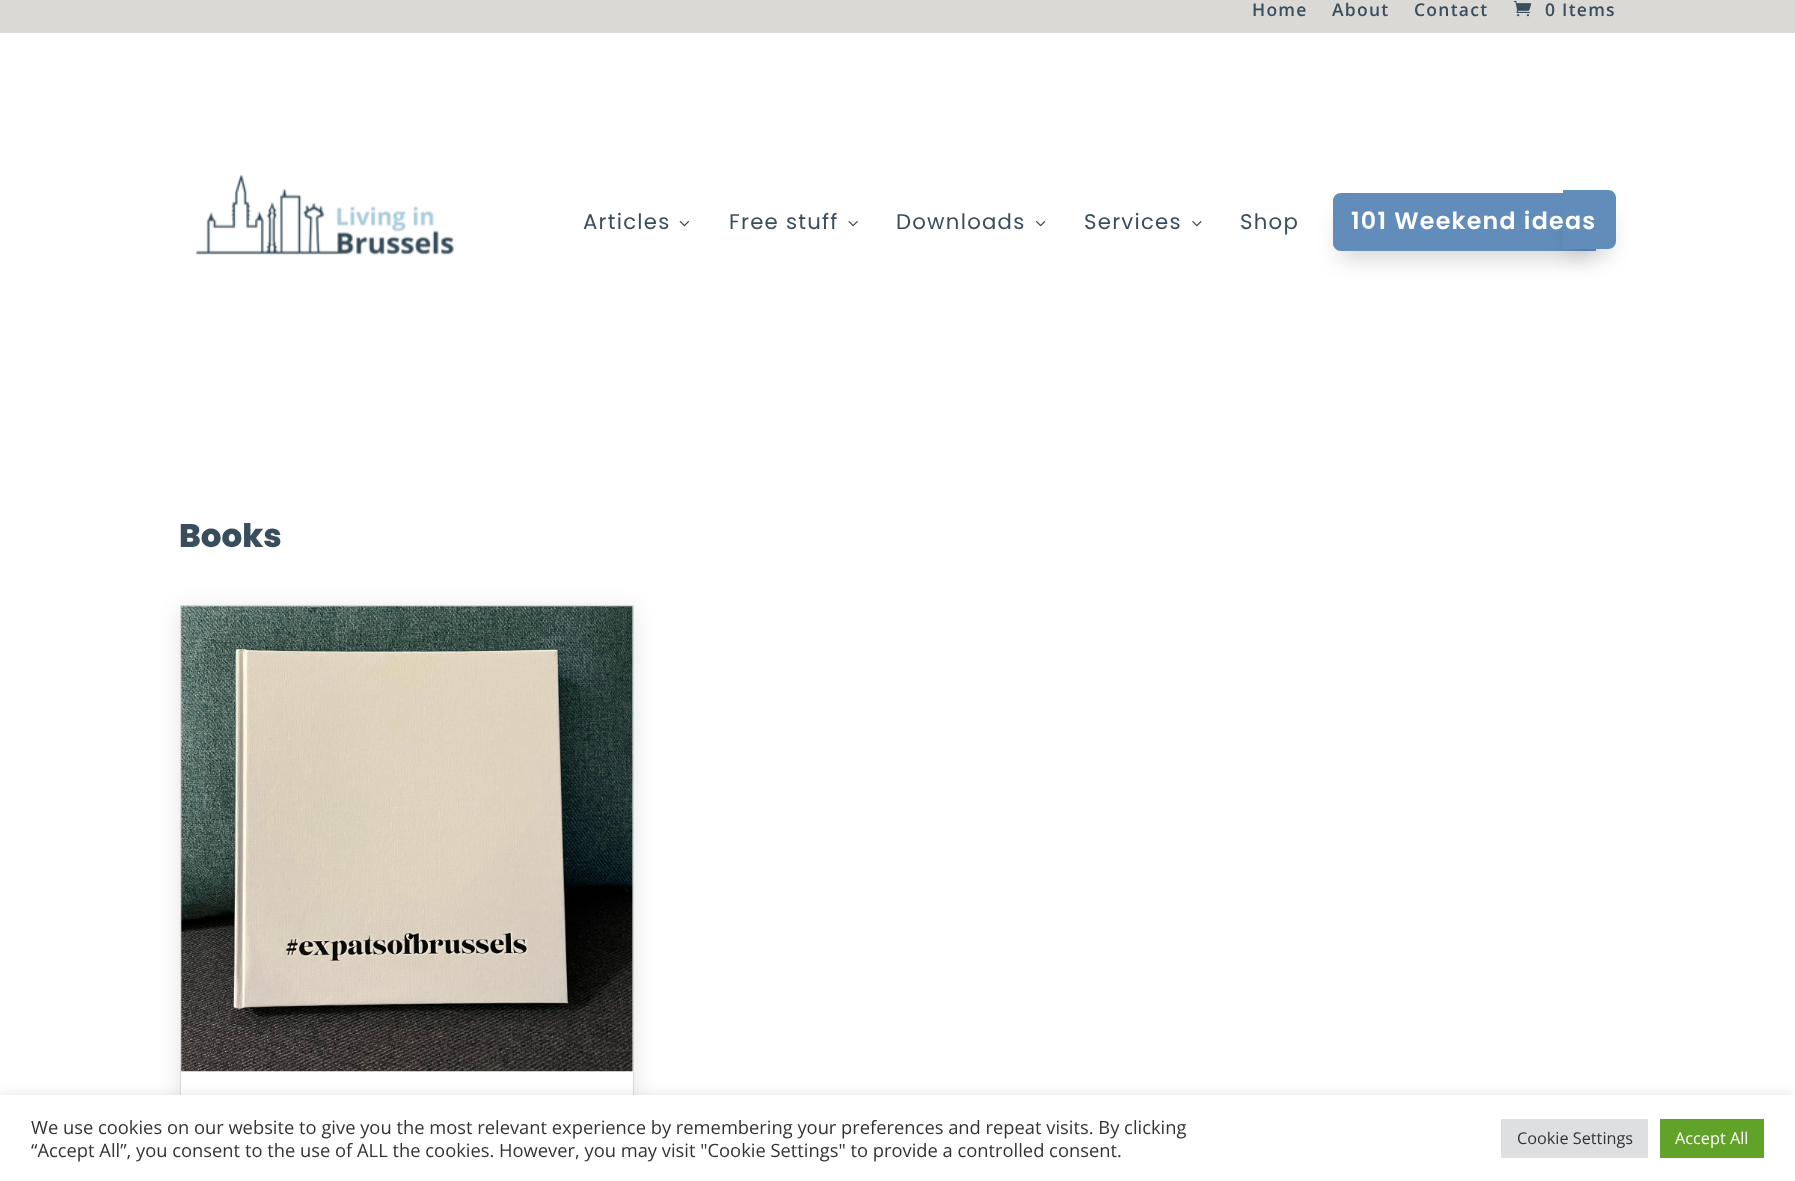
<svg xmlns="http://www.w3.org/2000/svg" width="1795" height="1181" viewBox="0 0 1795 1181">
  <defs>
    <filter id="blur1" x="-50%" y="-200%" width="200%" height="500%"><feGaussianBlur stdDeviation="11"/></filter>
    <filter id="blur2" x="-50%" y="-200%" width="200%" height="500%"><feGaussianBlur stdDeviation="6"/></filter>
  </defs>
  <rect width="100%" height="100%" fill="#ffffff"/>
  <rect x="0" y="0" width="1795" height="33" fill="#dad9d6"/>
  <text x="1252" y="16" font-family="Open Sans" font-size="17.5" font-weight="600" letter-spacing="1.25" fill="#394e5d">Home</text>
  <text x="1332" y="16" font-family="Open Sans" font-size="17.5" font-weight="600" letter-spacing="1.25" fill="#394e5d">About</text>
  <text x="1414" y="16" font-family="Open Sans" font-size="17.5" font-weight="600" letter-spacing="1.25" fill="#394e5d">Contact</text>
  <image x="1513" y="0" width="19" height="17" href="img1.png"/>
  <text x="1545" y="16" font-family="Open Sans" font-size="17.5" font-weight="600" letter-spacing="1.25" fill="#394e5d">0 Items</text>
  <image x="196" y="174" width="258" height="81" href="img2.png"/>
  <text x="583" y="229" font-family="Poppins" font-size="21.25" letter-spacing="1.25" fill="#394e5d">Articles</text>
  <image x="679" y="221" width="10" height="6" href="img3.png"/>
  <text x="729" y="229" font-family="Poppins" font-size="21.25" letter-spacing="1.25" fill="#394e5d">Free stuff</text>
  <image x="848" y="221" width="10" height="6" href="img4.png"/>
  <text x="896" y="229" font-family="Poppins" font-size="21.25" letter-spacing="1.25" fill="#394e5d">Downloads</text>
  <image x="1036" y="221" width="10" height="6" href="img5.png"/>
  <text x="1084" y="229" font-family="Poppins" font-size="21.25" letter-spacing="1.25" fill="#394e5d">Services</text>
  <image x="1192" y="221" width="10" height="6" href="img6.png"/>
  <text x="1240" y="229" font-family="Poppins" font-size="21.25" letter-spacing="1.25" fill="#394e5d">Shop</text>
  <rect x="1340" y="215" width="249" height="44" fill="#000000" fill-opacity="0.16" filter="url(#blur1)"/>
  <path d="M1341 193H1596V251H1341C1336.5 251 1333 247.5 1333 243V201C1333 196.5 1336.5 193 1341 193Z" fill="#628dbb"/>
  <rect x="1570" y="213" width="39" height="43" fill="#000000" fill-opacity="0.16" filter="url(#blur1)"/>
  <path d="M1563 190H1608C1612.5 190 1616 193.5 1616 198V241C1616 245.5 1612.5 249 1608 249H1563Z" fill="#628dbb"/>
  <text x="1351" y="229" font-family="Poppins" font-size="23.75" font-weight="600" letter-spacing="1.25" fill="#ffffff">101 Weekend ideas</text>
  <text x="179" y="547" font-family="Poppins" font-size="32.5" font-weight="800" fill="#394e5d">Books</text>
  <rect x="180" y="608" width="454" height="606" fill="#000000" fill-opacity="0.1" filter="url(#blur1)"/>
  <rect x="181" y="606" width="452" height="489" fill="#ffffff"/>
  <rect x="180.5" y="605.5" width="453" height="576" fill="none" stroke="#d8d8d8"/>
  <image x="181" y="606" width="452" height="466" href="img7.png"/>
  <rect x="0" y="1094" width="1795" height="86" fill="#acabab" fill-opacity="0.3" filter="url(#blur2)"/>
  <rect x="0" y="1095" width="1795" height="86" fill="#ffffff"/>
  <text x="31" y="1134" font-family="Open Sans" font-size="18.33" fill="#333333">We use cookies on our website to give you the most relevant experience by remembering your preferences and repeat visits. By clicking</text>
  <text x="31" y="1157" font-family="Open Sans" font-size="18.33" fill="#333333">“Accept All”, you consent to the use of ALL the cookies. However, you may visit "Cookie Settings" to provide a controlled consent.</text>
  <rect x="1501" y="1119" width="147" height="39" fill="#dedfe0"/>
  <text x="1517" y="1144" font-family="Open Sans" font-size="16.25" fill="#333333">Cookie Settings</text>
  <rect x="1660" y="1119" width="104" height="39" fill="#61a229"/>
  <text x="1675" y="1144" font-family="Open Sans" font-size="16.25" fill="#ffffff">Accept All</text>
</svg>
